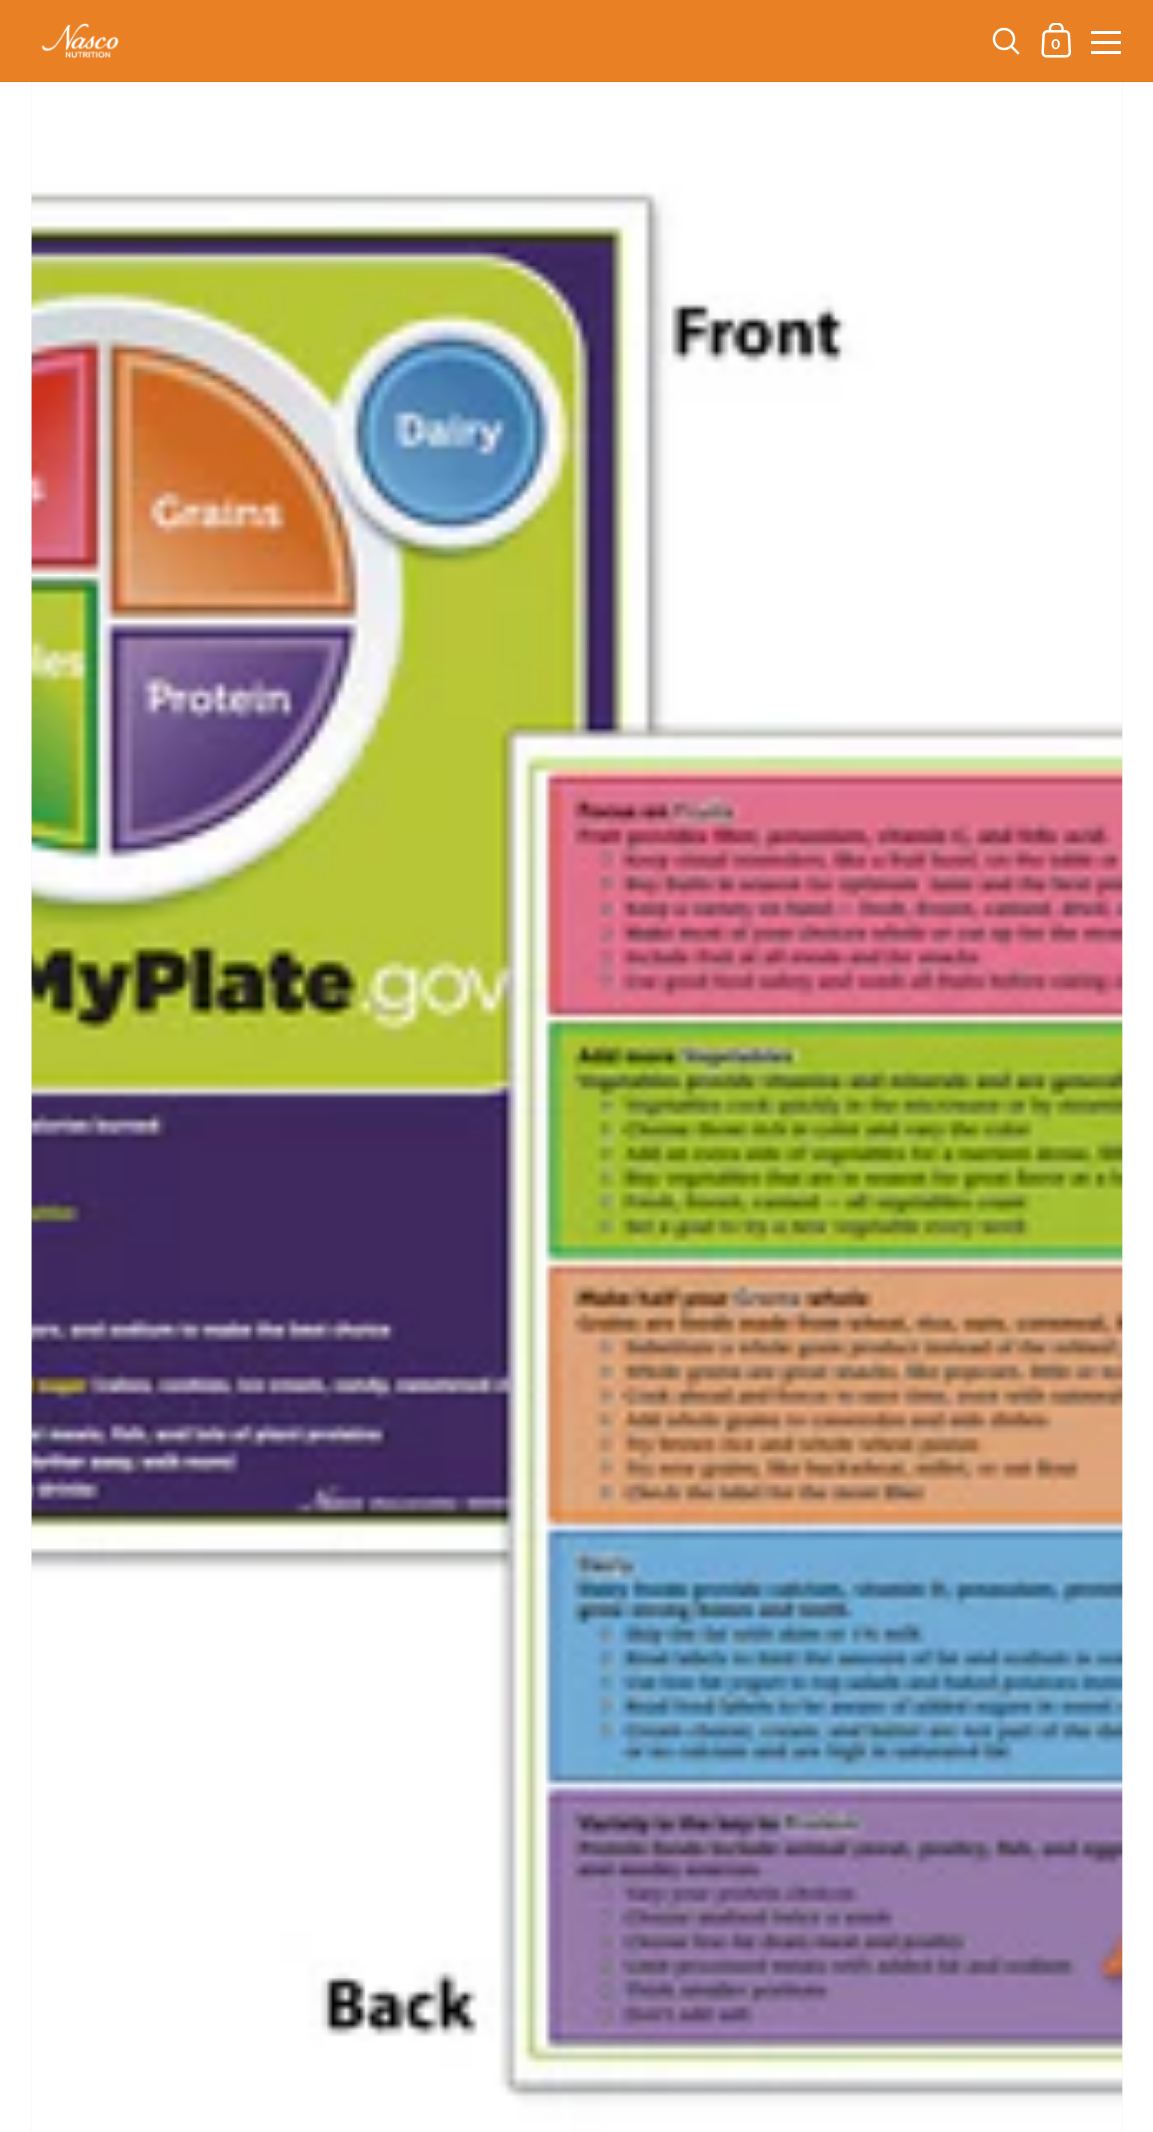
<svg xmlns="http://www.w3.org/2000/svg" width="1153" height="2132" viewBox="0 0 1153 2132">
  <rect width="100%" height="100%" fill="#ffffff"/>
  <rect x="0" y="81" width="1153" height="1" fill="#e87816"/>
  <rect x="0" y="0" width="1153" height="81" fill="#ea8024"/>
  <image x="41" y="23" width="78" height="36" href="img1.png"/>
  <image x="992" y="27" width="28" height="28" href="img2.png"/>
  <image x="1041" y="23" width="30" height="35" href="img3.png"/>
  <text x="1051" y="49" font-family="Montserrat" font-size="14" font-weight="600" fill="#ffffff">0</text>
  <rect x="1091" y="31" width="30" height="3" fill="#ffffff"/>
  <rect x="1091" y="41" width="30" height="3" fill="#ffffff"/>
  <rect x="1091" y="51" width="30" height="3" fill="#ffffff"/>
  <rect x="31" y="83" width="1092" height="2049" fill="#f7f7f7"/>
  <image x="31" y="83" width="1092" height="2049" href="img4.png"/>
</svg>
